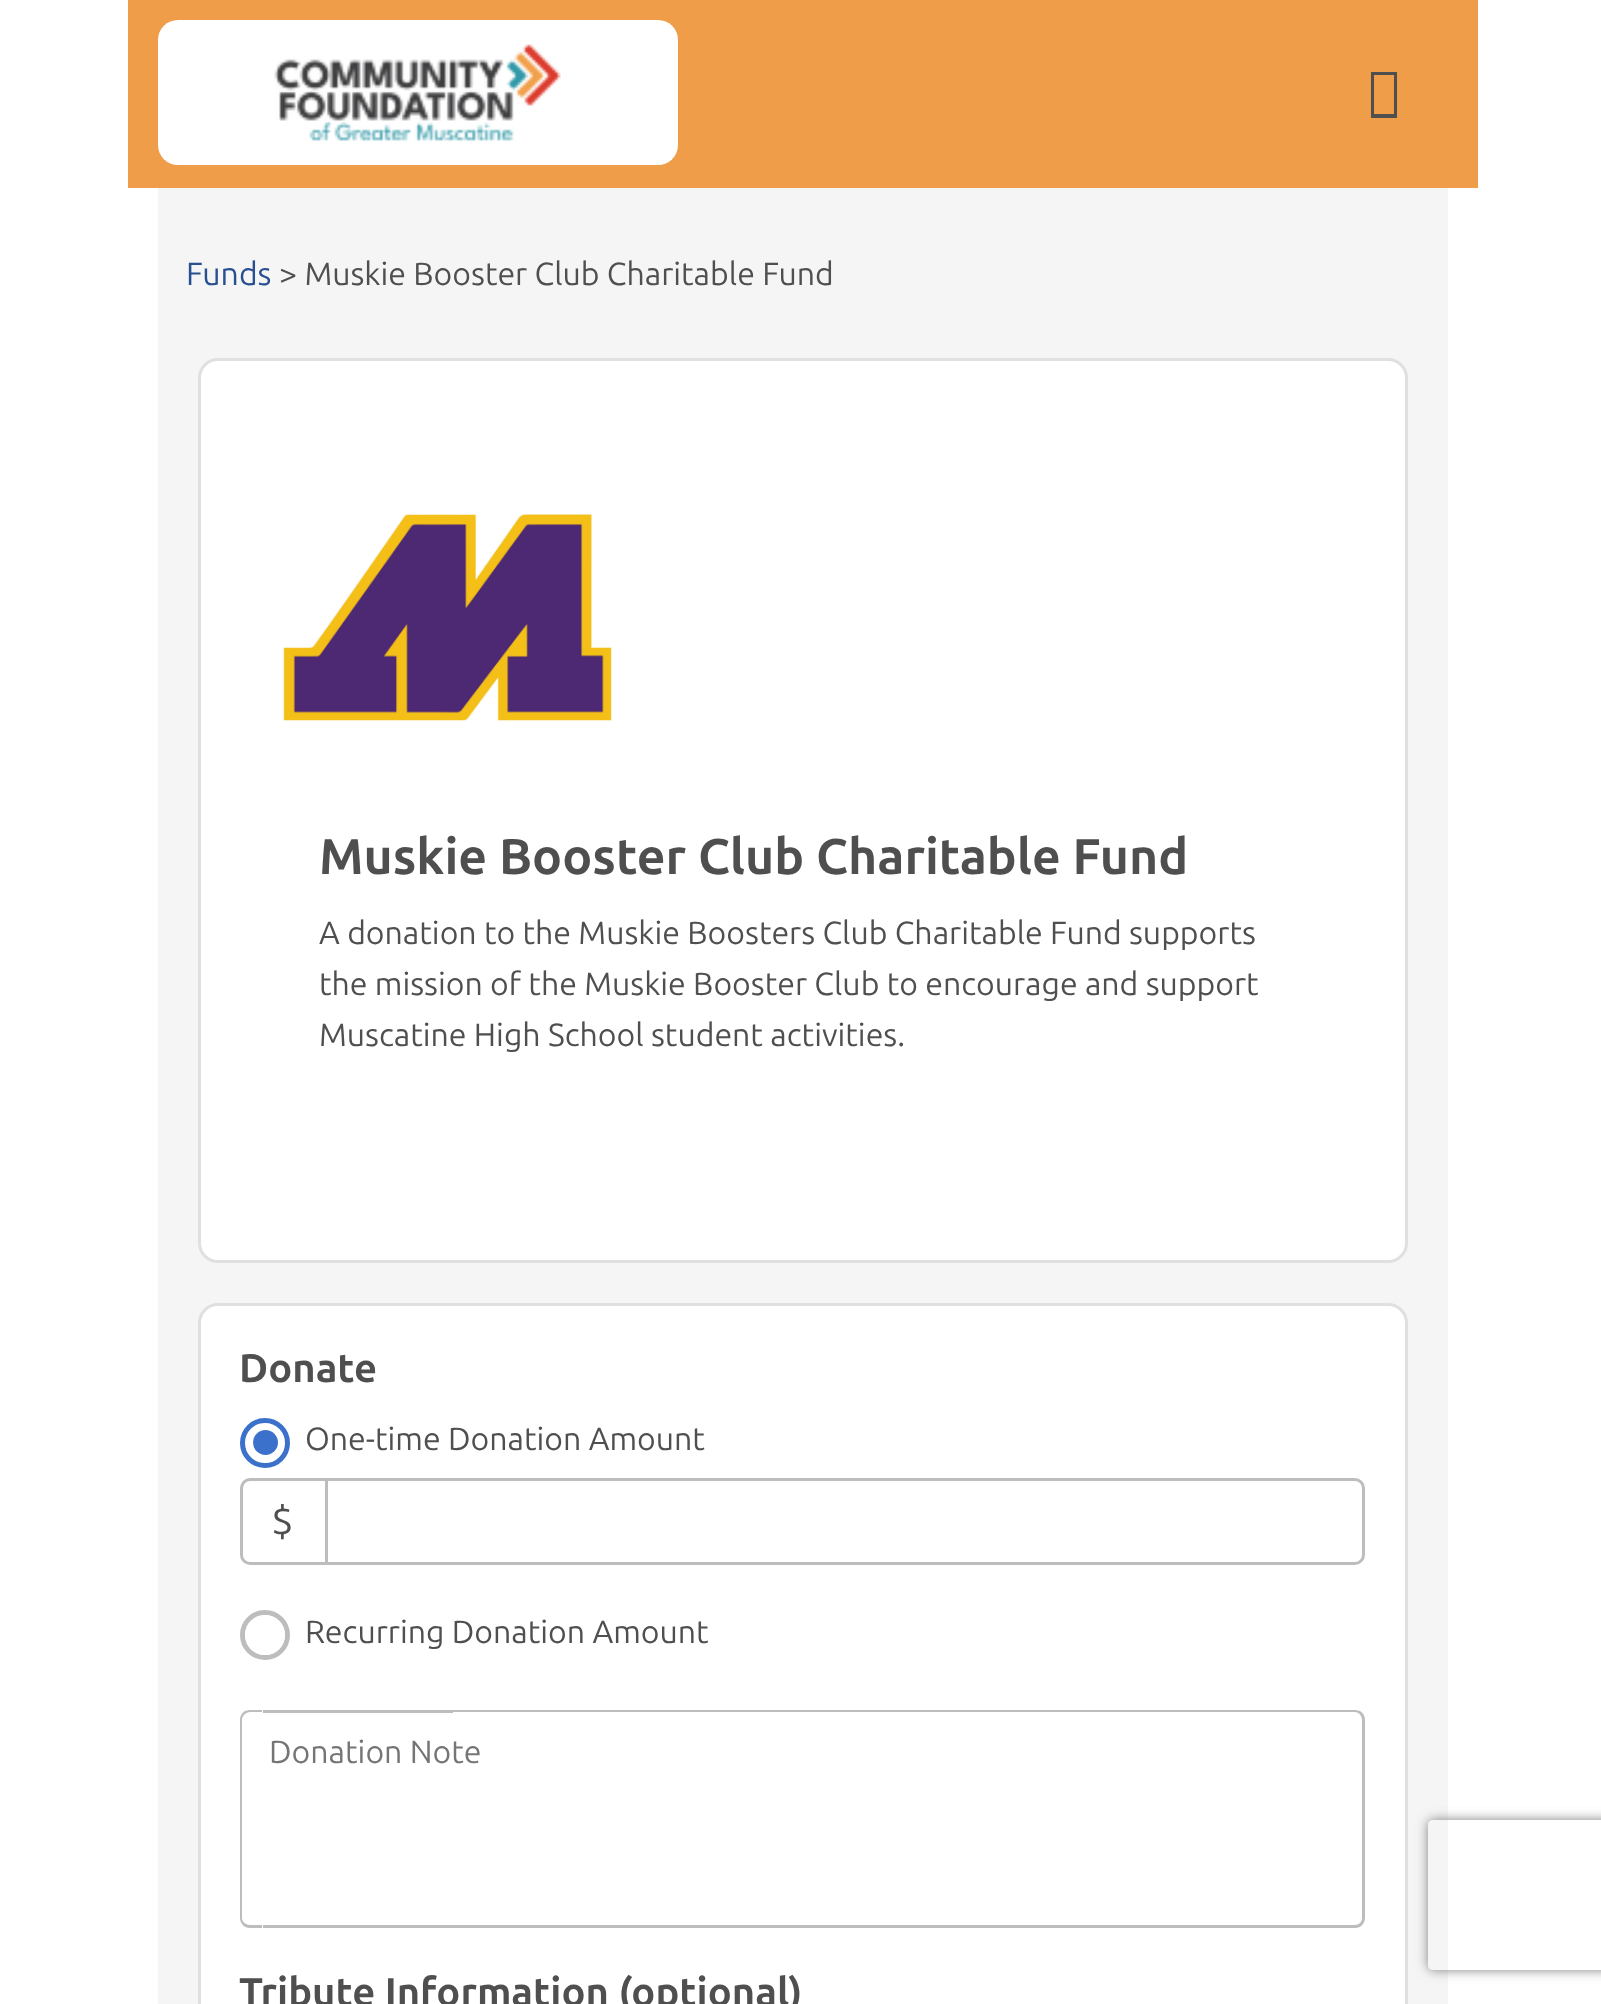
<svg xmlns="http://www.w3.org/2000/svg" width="1601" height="2004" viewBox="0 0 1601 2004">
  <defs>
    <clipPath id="clip1"><path d="M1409 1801H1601V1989H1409ZM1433 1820H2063C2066 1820 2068 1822 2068 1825V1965C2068 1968 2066 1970 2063 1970H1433C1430 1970 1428 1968 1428 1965V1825C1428 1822 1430 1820 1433 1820Z" clip-rule="evenodd"/></clipPath>
    <filter id="blur1" x="-50%" y="-200%" width="200%" height="500%"><feGaussianBlur stdDeviation="6"/></filter>
  </defs>
  <rect width="100%" height="100%" fill="#ffffff"/>
  <rect x="128" y="0" width="1350" height="188" fill="#ef9d48"/>
  <rect x="158" y="20" width="520" height="145" rx="20" fill="#ffffff"/>
  <image x="274" y="44" width="287" height="98" href="img1.png"/>
  <path d="M1371 118V72H1397V118ZM1374 114H1394V75H1374Z" fill="#4f4f4f"/>
  <rect x="158" y="188" width="1290" height="1816" fill="#f5f5f5"/>
  <text x="186" y="285" font-family="Ubuntu" font-size="32" fill="#274f91">Funds</text>
  <text x="279" y="285" font-family="Ubuntu" font-size="32" fill="#4f4f4f">&gt; Muskie Booster Club Charitable Fund</text>
  <rect x="199.5" y="359.5" width="1207" height="902" rx="18.5" fill="#ffffff" stroke="#e0e0e0" stroke-width="3"/>
  <image x="283" y="514" width="329" height="207" href="img2.png"/>
  <text x="319" y="874" font-family="Ubuntu" font-size="50" font-weight="bold" fill="#4f4f4f">Muskie Booster Club Charitable Fund</text>
  <text x="319" y="944" font-family="Ubuntu" font-size="32" fill="#4f4f4f">A donation to the Muskie Boosters Club Charitable Fund supports</text>
  <text x="319" y="995" font-family="Ubuntu" font-size="32" fill="#4f4f4f">the mission of the Muskie Booster Club to encourage and support</text>
  <text x="319" y="1046" font-family="Ubuntu" font-size="32" fill="#4f4f4f">Muscatine High School student activities.</text>
  <rect x="199.5" y="1304.5" width="1207" height="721" rx="18.5" fill="#ffffff" stroke="#e0e0e0" stroke-width="3"/>
  <text x="239" y="1382" font-family="Ubuntu" font-size="40" font-weight="bold" fill="#4f4f4f">Donate</text>
  <circle cx="265" cy="1443" r="22.5" fill="none" stroke="#3b71ca" stroke-width="5"/>
  <circle cx="265.5" cy="1442.5" r="12.5" fill="#3b71ca"/>
  <text x="305" y="1450" font-family="Ubuntu" font-size="32" fill="#4f4f4f">One-time Donation Amount</text>
  <path d="M250 1479.5H326.5V1563.5H250C245.5 1563.5 241.5 1559.5 241.5 1555V1488C241.5 1483.5 245.5 1479.5 250 1479.5Z" fill="none" stroke="#bdbdbd" stroke-width="3"/>
  <text x="271" y="1535" font-family="Ubuntu" font-size="40" fill="#4f4f4f">$</text>
  <path d="M326.5 1479.5H1355C1359.5 1479.5 1363.5 1483.5 1363.5 1488V1555C1363.5 1559.5 1359.5 1563.5 1355 1563.5H326.5Z" fill="none" stroke="#bdbdbd" stroke-width="3"/>
  <circle cx="265" cy="1635" r="22.5" fill="none" stroke="#bdbdbd" stroke-width="5"/>
  <circle cx="265" cy="1635" r="20" fill="#ffffff"/>
  <text x="305" y="1643" font-family="Ubuntu" font-size="32" fill="#4f4f4f">Recurring Donation Amount</text>
  <path d="M250 1710H262V1928H250C244 1928 240 1923 240 1918V1720C240 1714 244 1710 250 1710ZM250 1712H262V1925H250C246 1925 242 1922 242 1918V1720C242 1716 246 1712 250 1712Z" fill="#bdbdbd" fill-rule="evenodd"/>
  <rect x="263" y="1710" width="190" height="3" fill="#bdbdbd"/>
  <rect x="263" y="1925" width="190" height="3" fill="#bdbdbd"/>
  <text x="269" y="1763" font-family="Ubuntu" font-size="32" fill="#757575">Donation Note</text>
  <path d="M452 1710H1355C1361 1710 1365 1714 1365 1720V1918C1365 1923 1361 1928 1355 1928H452ZM452 1712H1355C1359 1712 1362 1716 1362 1720V1918C1362 1922 1359 1925 1355 1925H452Z" fill="#bdbdbd" fill-rule="evenodd"/>
  <text x="239" y="2006" font-family="Ubuntu" font-size="40" font-weight="bold" fill="#4f4f4f">Tribute Information (optional)</text>
  <g clip-path="url(#clip1)">
    <rect x="1428" y="1820" width="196" height="150" rx="5" fill="#808080" filter="url(#blur1)"/>
  </g>
</svg>
